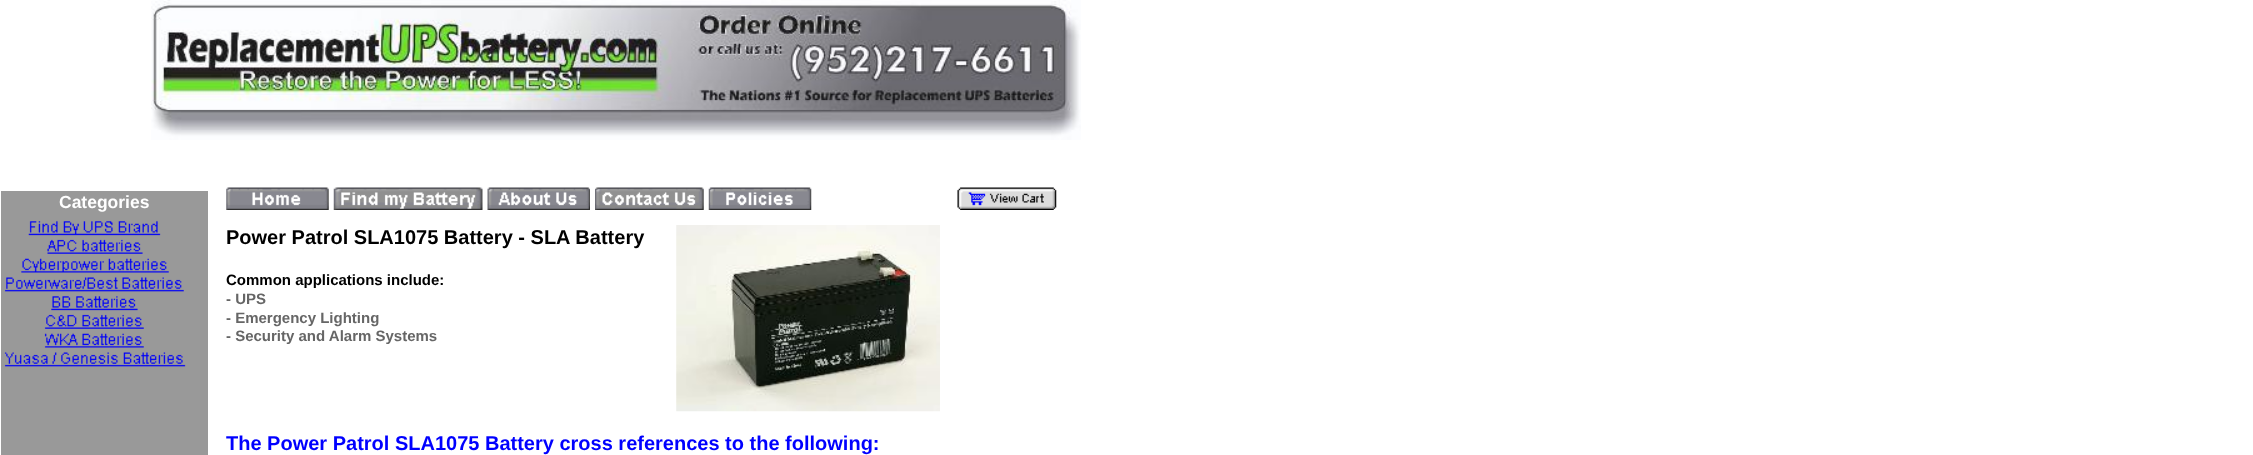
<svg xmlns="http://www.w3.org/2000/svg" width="2253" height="455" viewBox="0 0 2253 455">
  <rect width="100%" height="100%" fill="#ffffff"/>
  <image x="151" y="0" width="930" height="140" href="img1.png"/>
  <rect x="1" y="191" width="207" height="264" fill="#999999"/>
  <text x="59" y="208" font-family="Liberation Sans" font-size="17.5" font-weight="bold" fill="#ffffff">Categories</text>
  <image x="226" y="187" width="103" height="23" href="img2.png"/>
  <image x="333" y="187" width="150" height="23" href="img3.png"/>
  <image x="487" y="187" width="103" height="23" href="img4.png"/>
  <image x="595" y="187" width="109" height="23" href="img5.png"/>
  <image x="708" y="187" width="104" height="23" href="img6.png"/>
  <image x="957" y="187" width="100" height="23" href="img7.png"/>
  <image x="28" y="221" width="133" height="15" href="img8.png"/>
  <image x="47" y="239" width="96" height="15" href="img9.png"/>
  <image x="21" y="258" width="148" height="15" href="img10.png"/>
  <image x="4" y="277" width="180" height="15" href="img11.png"/>
  <image x="51" y="296" width="87" height="15" href="img12.png"/>
  <image x="44" y="314" width="100" height="15" href="img13.png"/>
  <image x="44" y="333" width="100" height="15" href="img14.png"/>
  <image x="4" y="352" width="182" height="15" href="img15.png"/>
  <text x="226" y="244" font-family="Liberation Sans" font-size="20" font-weight="bold" fill="#000000">Power Patrol SLA1075 Battery - SLA Battery</text>
  <image x="676" y="225" width="264" height="187" href="img16.png"/>
  <text x="226" y="285" font-family="Liberation Sans" font-size="15" font-weight="bold" fill="#000000">Common applications include:</text>
  <text x="226" y="304" font-family="Liberation Sans" font-size="15" font-weight="bold" fill="#666666">- UPS</text>
  <text x="226" y="323" font-family="Liberation Sans" font-size="15" font-weight="bold" fill="#666666">- Emergency Lighting</text>
  <text x="226" y="341" font-family="Liberation Sans" font-size="15" font-weight="bold" fill="#666666">- Security and Alarm Systems</text>
  <text x="226" y="450" font-family="Liberation Sans" font-size="20" font-weight="bold" fill="#0000ff">The Power Patrol SLA1075 Battery cross references to the following:</text>
</svg>
